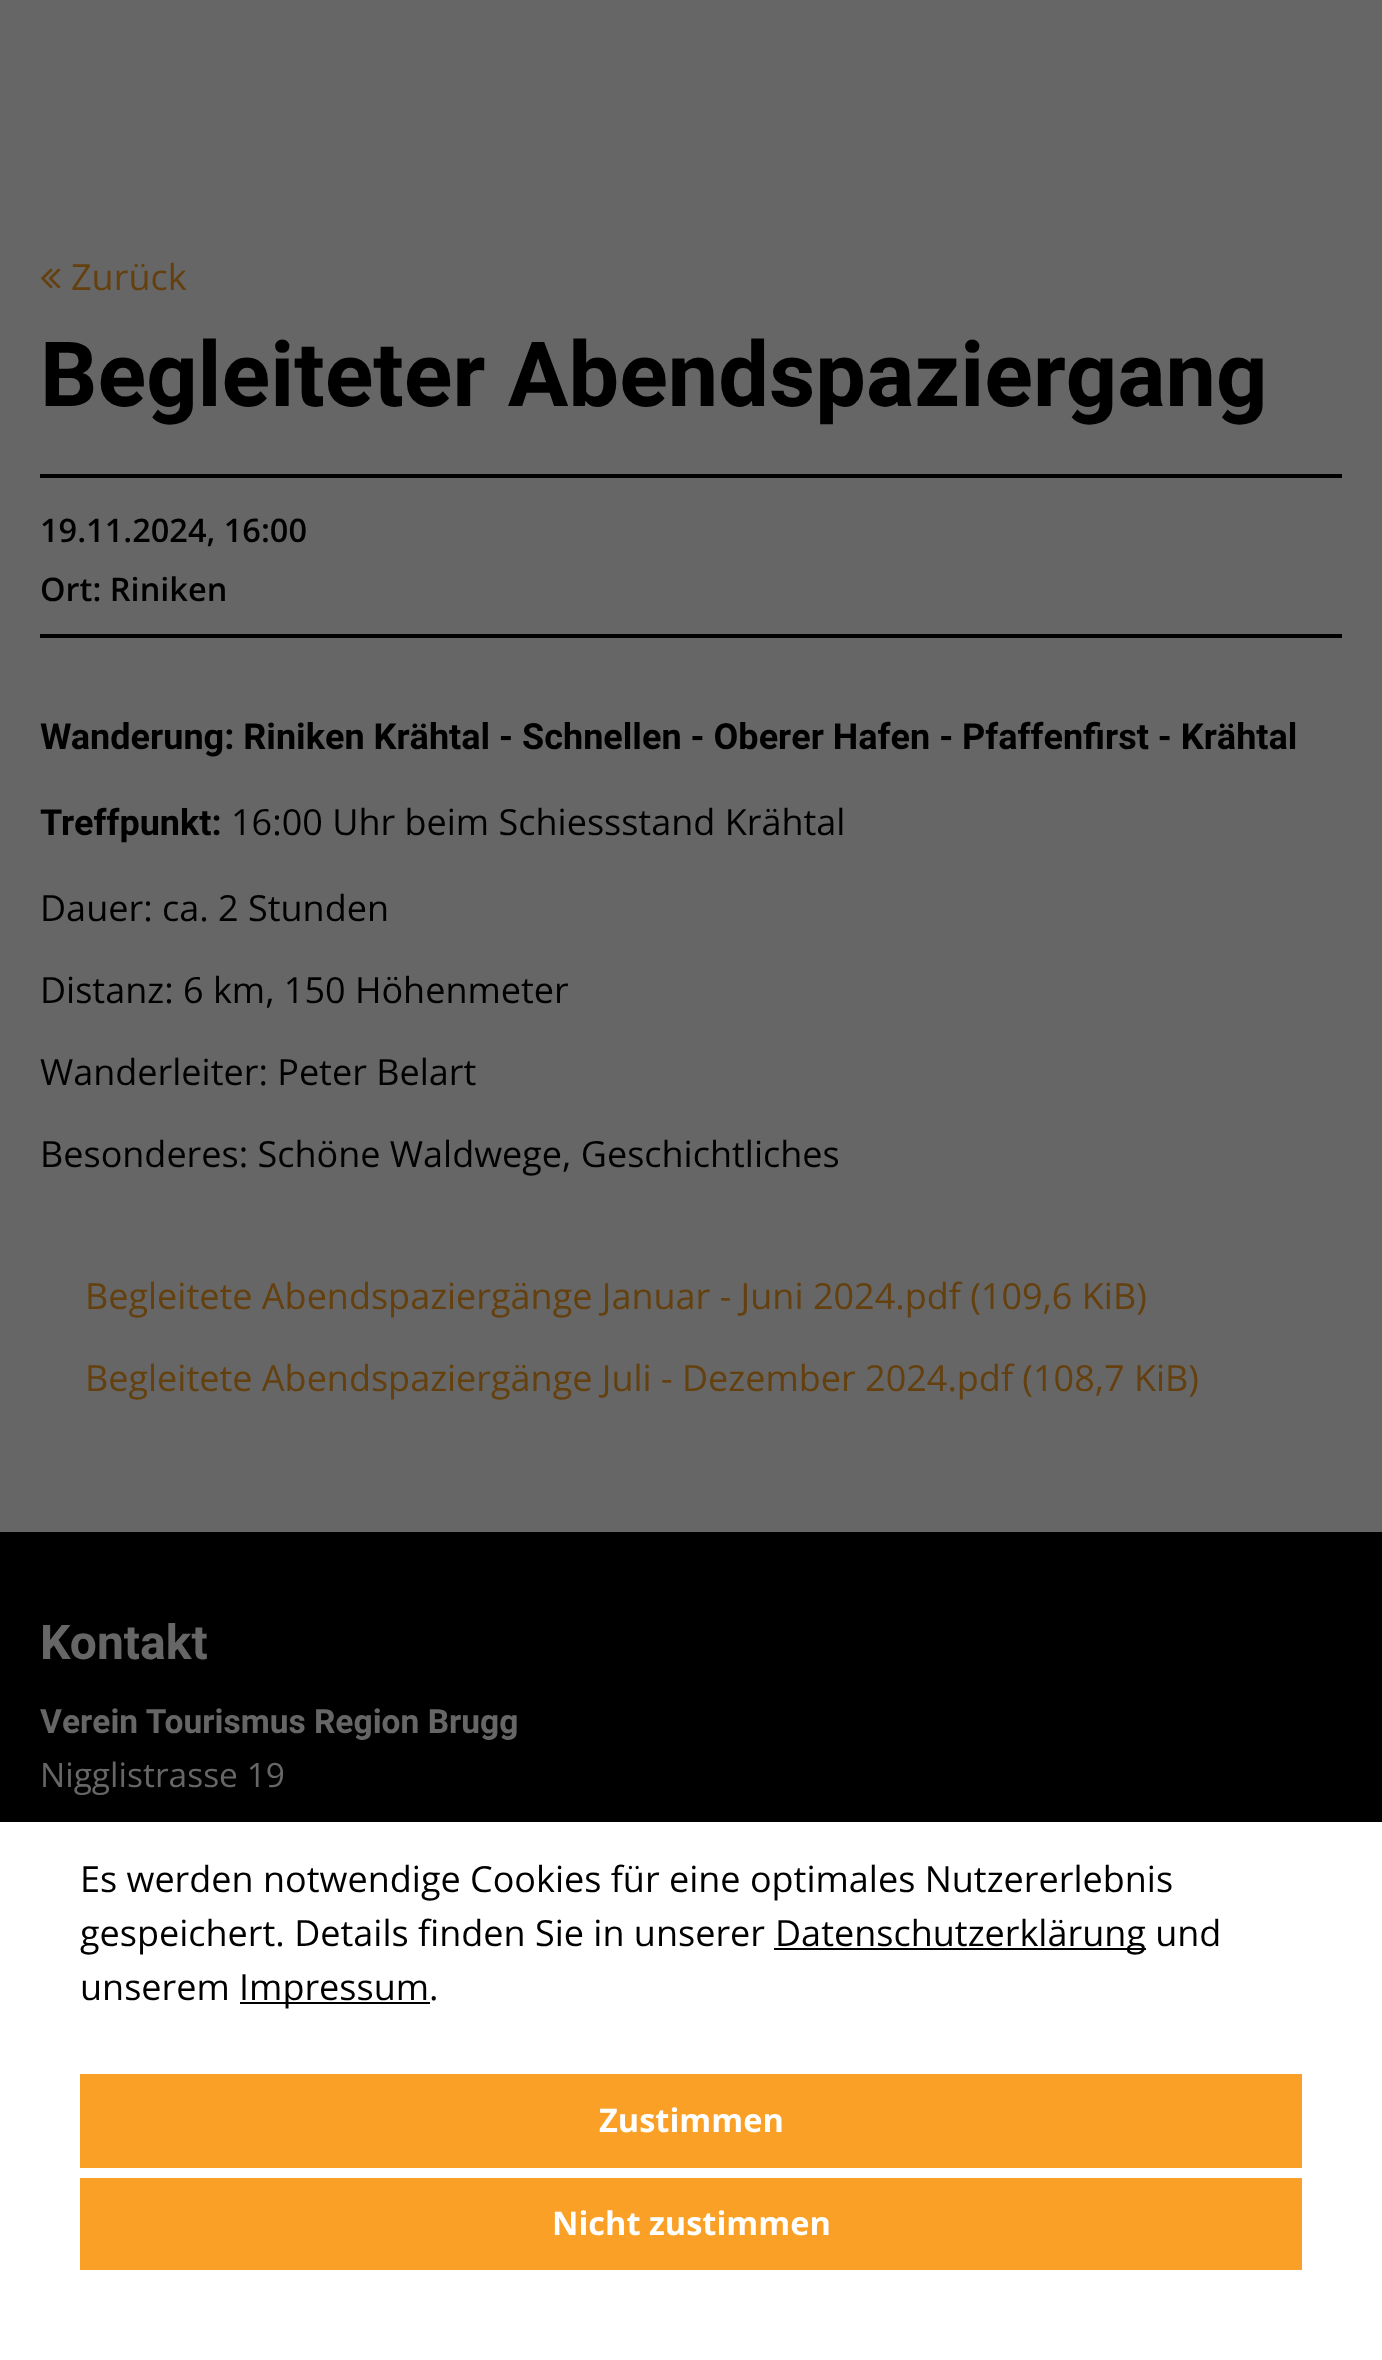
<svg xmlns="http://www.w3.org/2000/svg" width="1382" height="2360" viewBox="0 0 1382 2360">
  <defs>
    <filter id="blur1" x="-50%" y="-200%" width="200%" height="500%"><feGaussianBlur stdDeviation="2"/></filter>
  </defs>
  <rect width="100%" height="100%" fill="#666666"/>
  <image x="40" y="268" width="21" height="21" href="img1.png"/>
  <text x="71" y="290" font-family="Open Sans" font-size="36" fill="#64400f">Zurück</text>
  <text x="40" y="406" font-family="Heebo" font-size="90" font-weight="bold" fill="#000000">Begleiteter Abendspaziergang</text>
  <rect x="40" y="474" width="1302" height="4" fill="#000000"/>
  <rect x="40" y="634" width="1302" height="4" fill="#000000"/>
  <text x="40" y="542" font-family="Open Sans" font-size="32.5" font-weight="600" fill="#000000">19.11.2024, 16:00</text>
  <text x="40" y="601" font-family="Open Sans" font-size="32.5" font-weight="600" fill="#000000">Ort: Riniken</text>
  <text x="40" y="749" font-family="Heebo" font-size="36" font-weight="bold" fill="#000000">Wanderung: Riniken Krähtal - Schnellen - Oberer Hafen - Pfaffenfirst - Krähtal</text>
  <text x="40" y="835" font-family="Heebo" font-size="36" font-weight="bold" fill="#000000">Treffpunkt:</text>
  <text x="231" y="835" font-family="Open Sans" font-size="36" fill="#000000">16:00 Uhr beim Schiessstand Krähtal</text>
  <text x="40" y="921" font-family="Open Sans" font-size="36" fill="#000000">Dauer: ca. 2 Stunden</text>
  <text x="40" y="1003" font-family="Open Sans" font-size="36" fill="#000000">Distanz: 6 km, 150 Höhenmeter</text>
  <text x="40" y="1085" font-family="Open Sans" font-size="36" fill="#000000">Wanderleiter: Peter Belart</text>
  <text x="40" y="1167" font-family="Open Sans" font-size="36" fill="#000000">Besonderes: Schöne Waldwege, Geschichtliches</text>
  <text x="85" y="1309" font-family="Open Sans" font-size="36" fill="#64400f">Begleitete Abendspaziergänge Januar - Juni 2024.pdf (109,6 KiB)</text>
  <text x="85" y="1391" font-family="Open Sans" font-size="36" fill="#64400f">Begleitete Abendspaziergänge Juli - Dezember 2024.pdf (108,7 KiB)</text>
  <rect x="0" y="1532" width="1382" height="290" fill="#000000"/>
  <text x="40" y="1659" font-family="Heebo" font-size="48" font-weight="bold" fill="#666666">Kontakt</text>
  <text x="40" y="1733" font-family="Heebo" font-size="33.5" font-weight="bold" fill="#666666">Verein Tourismus Region Brugg</text>
  <text x="40" y="1787" font-family="Open Sans" font-size="33.5" fill="#666666">Nigglistrasse 19</text>
  <rect x="-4" y="1818" width="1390" height="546" fill="#000000" fill-opacity="0.1" filter="url(#blur1)"/>
  <rect x="0" y="1822" width="1382" height="538" fill="#ffffff"/>
  <text x="80" y="1892" font-family="Open Sans" font-size="36" fill="#000000">Es werden notwendige Cookies für eine optimales Nutzererlebnis</text>
  <text x="80" y="1946" font-family="Open Sans" font-size="36" fill="#000000">gespeichert. Details finden Sie in unserer</text>
  <rect x="774" y="1948" width="372" height="2" fill="#000000"/>
  <text x="775" y="1946" font-family="Open Sans" font-size="36" fill="#000000">Datenschutzerklärung und</text>
  <text x="80" y="2000" font-family="Open Sans" font-size="36" fill="#000000">unserem</text>
  <rect x="240" y="2002" width="190" height="2" fill="#000000"/>
  <text x="239" y="2000" font-family="Open Sans" font-size="36" fill="#000000">Impressum.</text>
  <rect x="80" y="2074" width="1222" height="94" fill="#faa026"/>
  <text x="599" y="2132" font-family="Open Sans" font-size="32.5" font-weight="bold" fill="#ffffff">Zustimmen</text>
  <rect x="80" y="2178" width="1222" height="92" fill="#faa026"/>
  <text x="552" y="2235" font-family="Open Sans" font-size="32.5" font-weight="bold" fill="#ffffff">Nicht zustimmen</text>
</svg>
